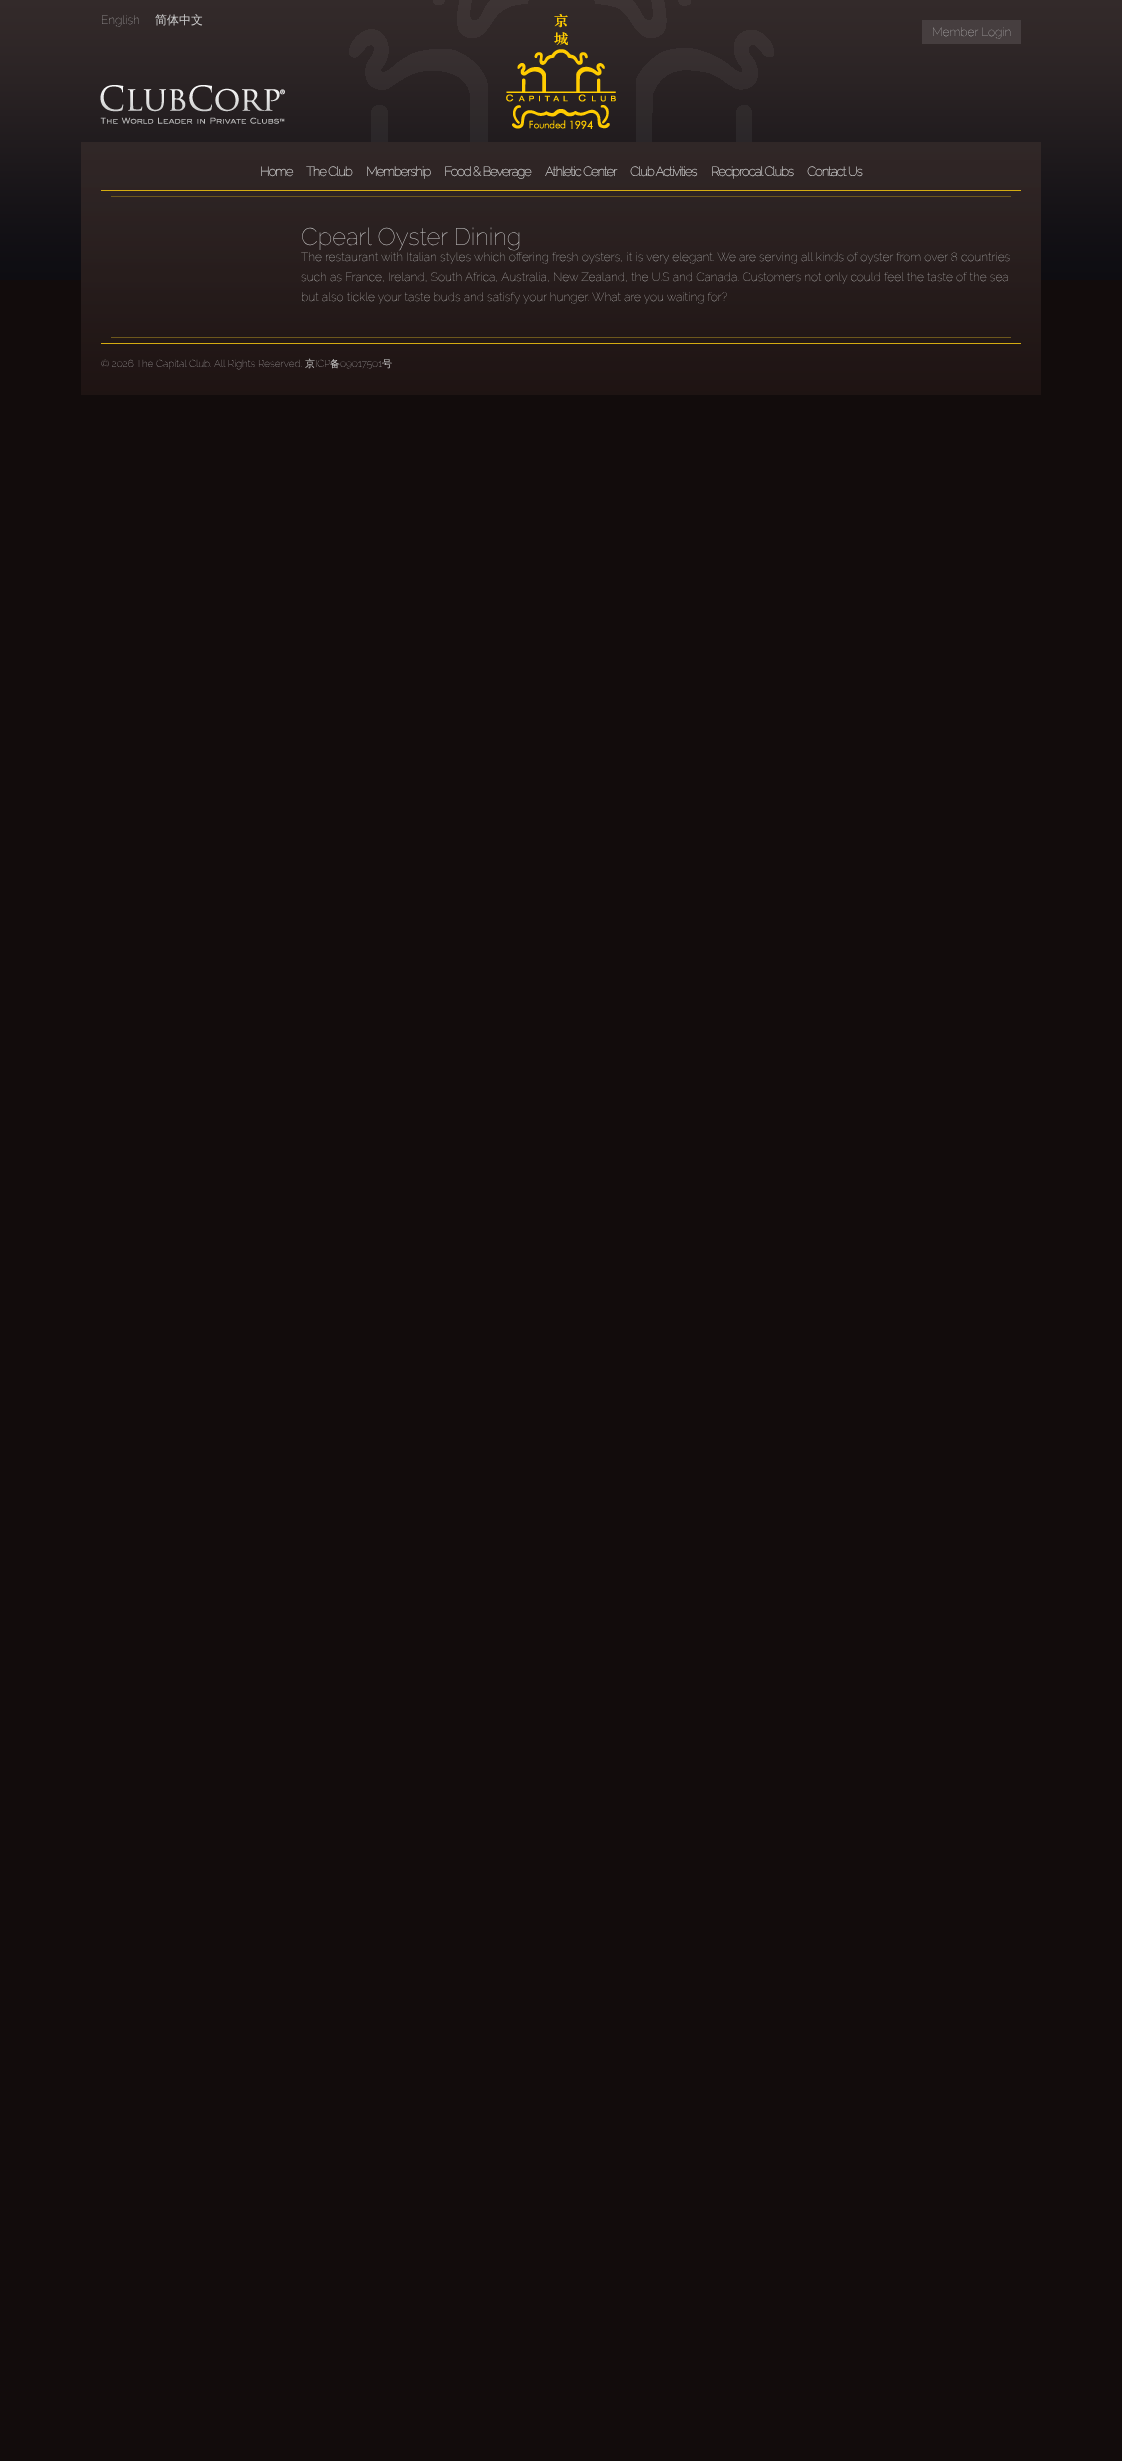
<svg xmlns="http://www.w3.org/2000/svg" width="1122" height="2461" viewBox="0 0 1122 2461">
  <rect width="100%" height="100%" fill="#120c0c"/>
  <image x="0" y="0" width="1122" height="280" href="img1.png"/>
  <image x="349" y="0" width="425" height="142" href="img2.png"/>
  <text x="101" y="24" font-family="Raleway" font-size="12" font-weight="100" fill="#cccccc">English</text>
  <text x="155" y="24" font-family="WenQuanYi Zen Hei" font-size="12" font-weight="500" fill="#cccccc">简体中文</text>
  <rect x="922" y="20" width="99" height="24" fill="#463e3f"/>
  <text x="932" y="36" font-family="Raleway" font-size="12" font-weight="100" fill="#cccccc">Member Login</text>
  <image x="100" y="85" width="185" height="39" href="img3.png"/>
  <image x="81" y="142" width="960" height="253" href="img4.png"/>
  <rect x="101" y="190" width="920" height="1" fill="#d4ac11"/>
  <text x="260" y="176" font-family="Raleway" font-size="13" font-weight="bold" letter-spacing="-1" fill="#cccccc">Home</text>
  <text x="306" y="176" font-family="Raleway" font-size="13" font-weight="bold" letter-spacing="-1" fill="#cccccc">The Club</text>
  <text x="366" y="176" font-family="Raleway" font-size="13" font-weight="bold" letter-spacing="-1" fill="#cccccc">Membership</text>
  <text x="444" y="176" font-family="Raleway" font-size="13" font-weight="bold" letter-spacing="-1" fill="#cccccc">Food &amp; Beverage</text>
  <text x="545" y="176" font-family="Raleway" font-size="13" font-weight="bold" letter-spacing="-1" fill="#cccccc">Athletic Center</text>
  <text x="630" y="176" font-family="Raleway" font-size="13" font-weight="bold" letter-spacing="-1" fill="#cccccc">Club Activities</text>
  <text x="711" y="176" font-family="Raleway" font-size="13" font-weight="bold" letter-spacing="-1" fill="#cccccc">Reciprocal Clubs</text>
  <text x="807" y="176" font-family="Raleway" font-size="13" font-weight="bold" letter-spacing="-1" fill="#cccccc">Contact Us</text>
  <rect x="111" y="196" width="900" height="1" fill="#6d571c"/>
  <text x="301" y="245" font-family="Raleway" font-size="24" font-weight="100" fill="#cccccc">Cpearl Oyster Dining</text>
  <text x="301" y="261" font-family="Raleway" font-size="12" font-weight="100" fill="#cccccc">The restaurant with Italian styles which offering fresh oysters, it is very elegant. We are serving all kinds of oyster from over 8 countries</text>
  <text x="301" y="281" font-family="Raleway" font-size="12" font-weight="100" fill="#cccccc">such as France, Ireland, South Africa, Australia, New Zealand, the U.S and Canada. Customers not only could feel the taste of the sea</text>
  <text x="301" y="301" font-family="Raleway" font-size="12" font-weight="100" fill="#cccccc">but also tickle your taste buds and satisfy your hunger. What are you waiting for?</text>
  <rect x="111" y="337" width="900" height="1" fill="#6d571c"/>
  <rect x="101" y="343" width="920" height="1" fill="#d4ac11"/>
  <text x="101" y="367" font-family="Raleway" font-size="10" font-weight="100" fill="#cccccc">© 2026 The Capital Club. All Rights Reserved.</text>
  <text x="305" y="367" font-family="WenQuanYi Zen Hei" font-size="10" font-weight="500" fill="#cccccc">京</text>
  <text x="315" y="367" font-family="Raleway" font-size="10" font-weight="100" fill="#cccccc">ICP</text>
  <text x="330" y="367" font-family="WenQuanYi Zen Hei" font-size="10" font-weight="500" fill="#cccccc">备</text>
  <text x="340" y="367" font-family="Raleway" font-size="10" font-weight="100" fill="#cccccc">09017501</text>
  <text x="382" y="367" font-family="WenQuanYi Zen Hei" font-size="10" font-weight="500" fill="#cccccc">号</text>
</svg>
